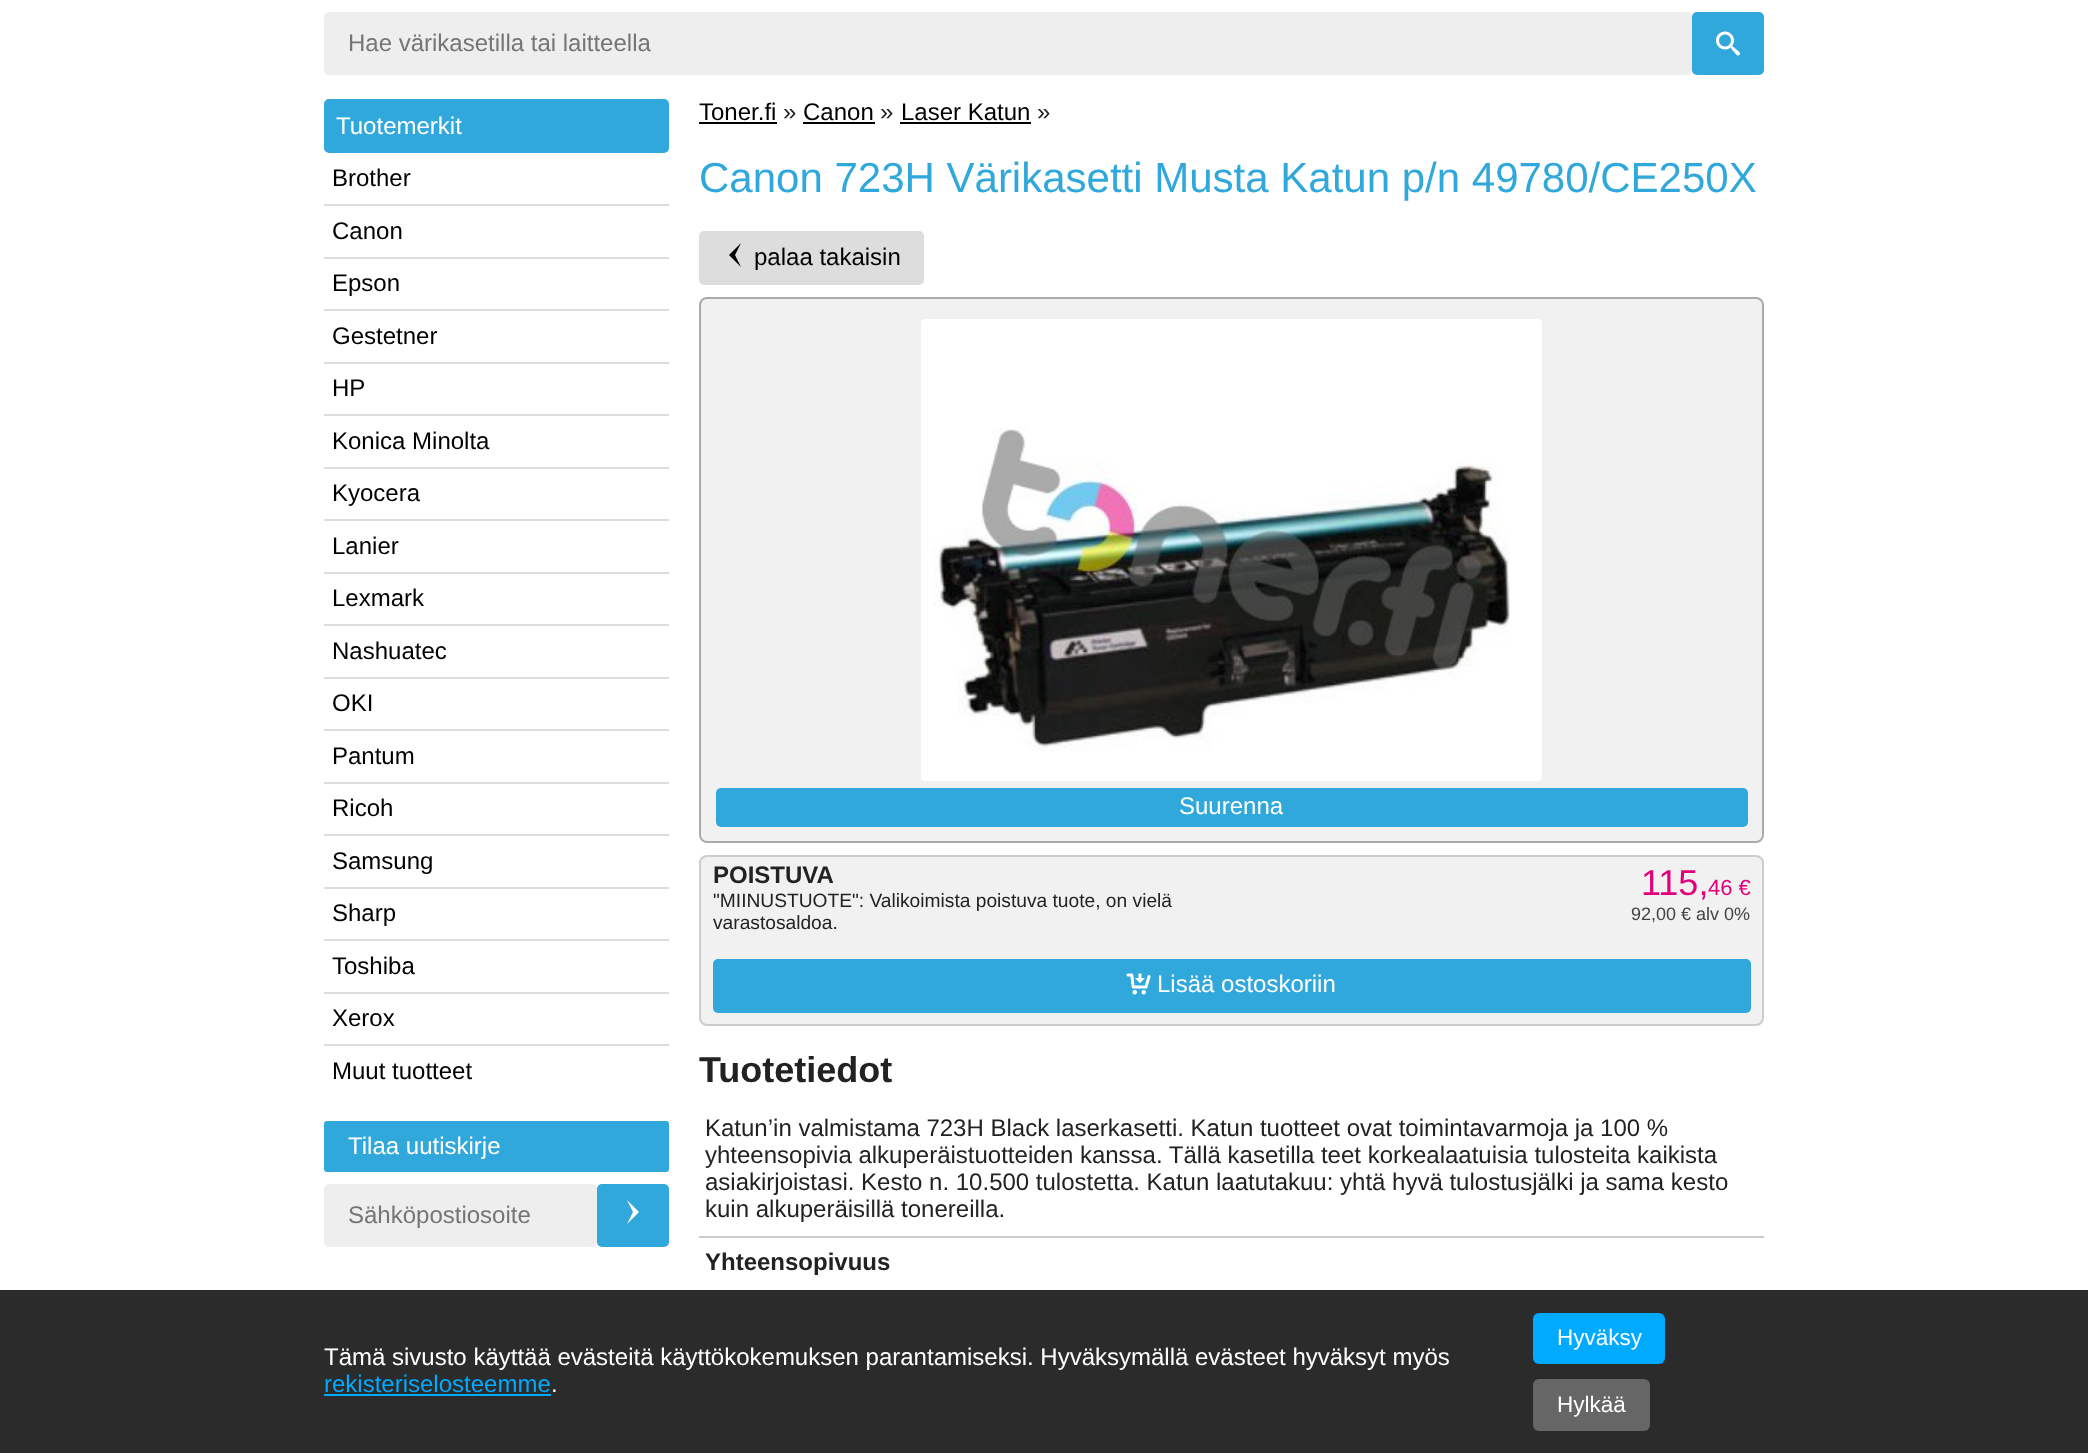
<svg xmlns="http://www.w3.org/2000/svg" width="2088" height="1453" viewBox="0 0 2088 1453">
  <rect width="100%" height="100%" fill="#ffffff"/>
  <rect x="324" y="12" width="1368" height="63" rx="5" fill="#eeeeee"/>
  <text x="348" y="51" font-family="Liberation Sans" font-size="24" fill="#757575">Hae värikasetilla tai laitteella</text>
  <rect x="1692" y="12" width="72" height="63" rx="5" fill="#31a8db"/>
  <image x="1716" y="31" width="24" height="25" href="img1.png"/>
  <rect x="324" y="99" width="345" height="54" rx="5" fill="#31a8db"/>
  <text x="336" y="134" font-family="Liberation Sans" font-size="24" fill="#ffffff">Tuotemerkit</text>
  <rect x="324" y="204" width="345" height="2" fill="#dddddd"/>
  <text x="332" y="186" font-family="Liberation Sans" font-size="24" fill="#000000">Brother</text>
  <rect x="324" y="257" width="345" height="2" fill="#dddddd"/>
  <text x="332" y="239" font-family="Liberation Sans" font-size="24" fill="#000000">Canon</text>
  <rect x="324" y="309" width="345" height="2" fill="#dddddd"/>
  <text x="332" y="291" font-family="Liberation Sans" font-size="24" fill="#000000">Epson</text>
  <rect x="324" y="362" width="345" height="2" fill="#dddddd"/>
  <text x="332" y="344" font-family="Liberation Sans" font-size="24" fill="#000000">Gestetner</text>
  <rect x="324" y="414" width="345" height="2" fill="#dddddd"/>
  <text x="332" y="396" font-family="Liberation Sans" font-size="24" fill="#000000">HP</text>
  <rect x="324" y="467" width="345" height="2" fill="#dddddd"/>
  <text x="332" y="449" font-family="Liberation Sans" font-size="24" fill="#000000">Konica Minolta</text>
  <rect x="324" y="519" width="345" height="2" fill="#dddddd"/>
  <text x="332" y="501" font-family="Liberation Sans" font-size="24" fill="#000000">Kyocera</text>
  <rect x="324" y="572" width="345" height="2" fill="#dddddd"/>
  <text x="332" y="554" font-family="Liberation Sans" font-size="24" fill="#000000">Lanier</text>
  <rect x="324" y="624" width="345" height="2" fill="#dddddd"/>
  <text x="332" y="606" font-family="Liberation Sans" font-size="24" fill="#000000">Lexmark</text>
  <rect x="324" y="677" width="345" height="2" fill="#dddddd"/>
  <text x="332" y="659" font-family="Liberation Sans" font-size="24" fill="#000000">Nashuatec</text>
  <rect x="324" y="729" width="345" height="2" fill="#dddddd"/>
  <text x="332" y="711" font-family="Liberation Sans" font-size="24" fill="#000000">OKI</text>
  <rect x="324" y="782" width="345" height="2" fill="#dddddd"/>
  <text x="332" y="764" font-family="Liberation Sans" font-size="24" fill="#000000">Pantum</text>
  <rect x="324" y="834" width="345" height="2" fill="#dddddd"/>
  <text x="332" y="816" font-family="Liberation Sans" font-size="24" fill="#000000">Ricoh</text>
  <rect x="324" y="887" width="345" height="2" fill="#dddddd"/>
  <text x="332" y="869" font-family="Liberation Sans" font-size="24" fill="#000000">Samsung</text>
  <rect x="324" y="939" width="345" height="2" fill="#dddddd"/>
  <text x="332" y="921" font-family="Liberation Sans" font-size="24" fill="#000000">Sharp</text>
  <rect x="324" y="992" width="345" height="2" fill="#dddddd"/>
  <text x="332" y="974" font-family="Liberation Sans" font-size="24" fill="#000000">Toshiba</text>
  <rect x="324" y="1044" width="345" height="2" fill="#dddddd"/>
  <text x="332" y="1026" font-family="Liberation Sans" font-size="24" fill="#000000">Xerox</text>
  <text x="332" y="1079" font-family="Liberation Sans" font-size="24" fill="#000000">Muut tuotteet</text>
  <rect x="324" y="1121" width="345" height="51" rx="3" fill="#31a8db"/>
  <text x="348" y="1154" font-family="Liberation Sans" font-size="24" fill="#ffffff">Tilaa uutiskirje</text>
  <rect x="324" y="1184" width="273" height="63" rx="5" fill="#eeeeee"/>
  <text x="348" y="1223" font-family="Liberation Sans" font-size="24" fill="#757575">Sähköpostiosoite</text>
  <rect x="597" y="1184" width="72" height="63" rx="5" fill="#31a8db"/>
  <path d="M627 1224L639 1212L627 1200L633 1212Z" fill="#ffffff"/>
  <text x="699" y="120" font-family="Liberation Sans" font-size="24" fill="#000000">Toner.fi</text>
  <rect x="699" y="122" width="78" height="2" fill="#000000"/>
  <text x="783" y="120" font-family="Liberation Sans" font-size="24" fill="#222222">»</text>
  <text x="803" y="120" font-family="Liberation Sans" font-size="24" fill="#000000">Canon</text>
  <rect x="803" y="122" width="72" height="2" fill="#000000"/>
  <text x="880" y="120" font-family="Liberation Sans" font-size="24" fill="#222222">»</text>
  <text x="901" y="120" font-family="Liberation Sans" font-size="24" fill="#000000">Laser Katun</text>
  <rect x="900" y="122" width="131" height="2" fill="#000000"/>
  <text x="1037" y="120" font-family="Liberation Sans" font-size="24" fill="#222222">»</text>
  <text x="699" y="192" font-family="Liberation Sans" font-size="42" fill="#31a8db">Canon 723H Värikasetti Musta Katun p/n 49780/CE250X</text>
  <rect x="699" y="231" width="225" height="54" rx="5" fill="#dddddd"/>
  <path d="M741 243L729 255L741 267L735 255Z" fill="#000000"/>
  <text x="754" y="265" font-family="Liberation Sans" font-size="24" fill="#000000">palaa takaisin</text>
  <rect x="700" y="298" width="1063" height="544" rx="7" fill="#f1f1f1" stroke="#aaaaaa" stroke-width="2"/>
  <image x="921" y="319" width="621" height="462" href="img2.png"/>
  <rect x="716" y="788" width="1032" height="39" rx="5" fill="#31a8db"/>
  <text x="1179" y="814" font-family="Liberation Sans" font-size="24" fill="#ffffff">Suurenna</text>
  <rect x="700" y="856" width="1063" height="169" rx="7" fill="#f1f1f1" stroke="#cccccc" stroke-width="2"/>
  <text x="713" y="883" font-family="Liberation Sans" font-size="24" font-weight="bold" fill="#222222">POISTUVA</text>
  <text x="713" y="907" font-family="Liberation Sans" font-size="19.2" fill="#222222">"MIINUSTUOTE": Valikoimista poistuva tuote, on vielä</text>
  <text x="713" y="929" font-family="Liberation Sans" font-size="19.2" fill="#222222">varastosaldoa.</text>
  <text x="1641" y="895" font-family="Liberation Sans" font-size="36" fill="#e2007a">115,</text>
  <text x="1708" y="895" font-family="Liberation Sans" font-size="22" fill="#e2007a">46 €</text>
  <text x="1631" y="920" font-family="Liberation Sans" font-size="18" fill="#444444">92,00 € alv 0%</text>
  <rect x="713" y="959" width="1038" height="54" rx="5" fill="#31a8db"/>
  <image x="1126" y="973" width="25" height="22" href="img3.png"/>
  <text x="1157" y="992" font-family="Liberation Sans" font-size="24" fill="#ffffff">Lisää ostoskoriin</text>
  <text x="699" y="1082" font-family="Liberation Sans" font-size="36" font-weight="bold" fill="#222222">Tuotetiedot</text>
  <rect x="699" y="1236" width="1065" height="2" fill="#cccccc"/>
  <text x="705" y="1136" font-family="Liberation Sans" font-size="24" fill="#222222">Katun’in valmistama 723H Black laserkasetti. Katun tuotteet ovat toimintavarmoja ja 100 %</text>
  <text x="705" y="1163" font-family="Liberation Sans" font-size="24" fill="#222222">yhteensopivia alkuperäistuotteiden kanssa. Tällä kasetilla teet korkealaatuisia tulosteita kaikista</text>
  <text x="705" y="1190" font-family="Liberation Sans" font-size="24" fill="#222222">asiakirjoistasi. Kesto n. 10.500 tulostetta. Katun laatutakuu: yhtä hyvä tulostusjälki ja sama kesto</text>
  <text x="705" y="1217" font-family="Liberation Sans" font-size="24" fill="#222222">kuin alkuperäisillä tonereilla.</text>
  <text x="705" y="1270" font-family="Liberation Sans" font-size="24" font-weight="bold" fill="#222222">Yhteensopivuus</text>
  <rect x="0" y="1290" width="2088" height="163" fill="#2b2b2b"/>
  <text x="324" y="1365" font-family="Liberation Sans" font-size="24" fill="#ffffff">Tämä sivusto käyttää evästeitä käyttökokemuksen parantamiseksi. Hyväksymällä evästeet hyväksyt myös</text>
  <text x="324" y="1392" font-family="Liberation Sans" font-size="24" fill="#00aaff">rekisteriselosteemme</text>
  <rect x="324" y="1394" width="227" height="2" fill="#00aaff"/>
  <text x="551" y="1392" font-family="Liberation Sans" font-size="24" fill="#ffffff">.</text>
  <rect x="1533" y="1313" width="132" height="51" rx="6" fill="#00aaff"/>
  <text x="1557" y="1345" font-family="Liberation Sans" font-size="22.5" fill="#ffffff">Hyväksy</text>
  <rect x="1533" y="1379" width="117" height="52" rx="6" fill="#666666"/>
  <text x="1557" y="1412" font-family="Liberation Sans" font-size="22.5" fill="#ffffff">Hylkää</text>
</svg>
